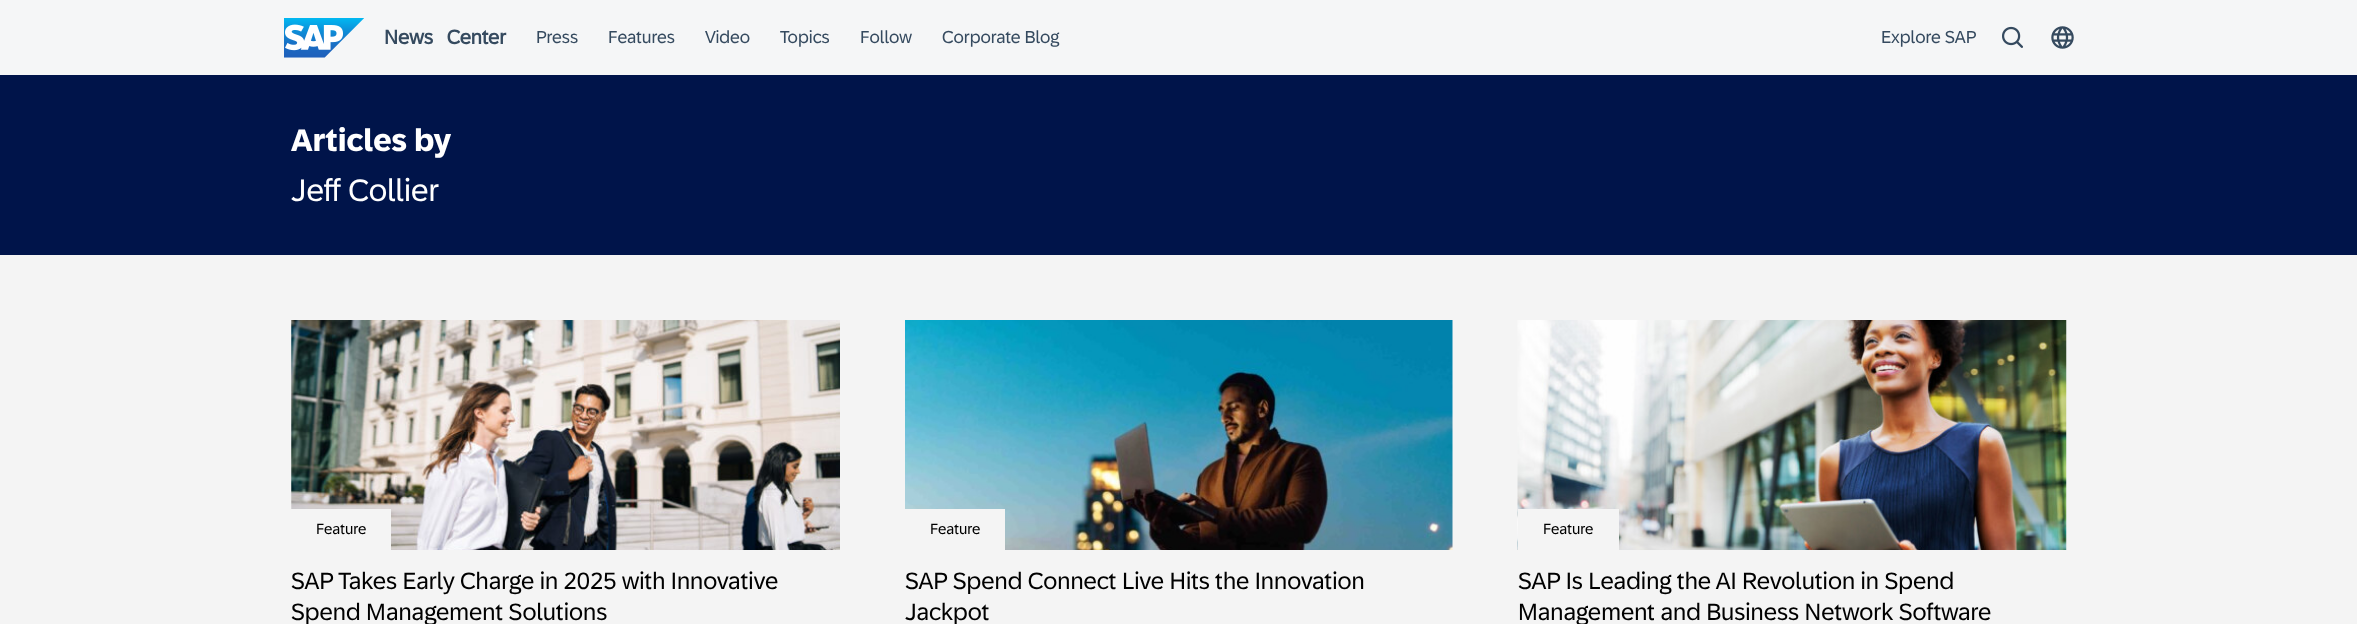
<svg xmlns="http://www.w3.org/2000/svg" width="2357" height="624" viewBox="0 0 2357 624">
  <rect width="100%" height="100%" fill="#f5f6f7"/>
  <image x="284" y="18" width="80" height="40" href="img1.png"/>
  <text x="384" y="44" word-spacing="9" font-family="'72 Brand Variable'" font-size="20" font-weight="bold" fill="#354a5f">News Center</text>
  <text x="536" y="43" font-family="'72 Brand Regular'" font-size="17.5" fill="#354a5f">Press</text>
  <text x="608" y="43" font-family="'72 Brand Regular'" font-size="17.5" fill="#354a5f">Features</text>
  <text x="705" y="43" font-family="'72 Brand Regular'" font-size="17.5" fill="#354a5f">Video</text>
  <text x="780" y="43" font-family="'72 Brand Regular'" font-size="17.5" fill="#354a5f">Topics</text>
  <text x="860" y="43" font-family="'72 Brand Regular'" font-size="17.5" fill="#354a5f">Follow</text>
  <text x="942" y="43" font-family="'72 Brand Regular'" font-size="17.5" fill="#354a5f">Corporate Blog</text>
  <text x="1881" y="43" font-family="'72 Brand Regular'" font-size="17.5" fill="#354a5f">Explore SAP</text>
  <image x="2002" y="26" width="21" height="22" href="img2.png"/>
  <image x="2051" y="26" width="23" height="23" href="img3.png"/>
  <rect x="0" y="255" width="2357" height="369" fill="#f4f4f4"/>
  <rect x="0" y="75" width="2357" height="180" fill="#00144a"/>
  <text x="291" y="151" font-family="'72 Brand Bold'" font-size="31.25" font-weight="bold" fill="#ffffff">Articles by</text>
  <text x="291" y="201" font-family="'72 Brand Regular'" font-size="31.25" fill="#ffffff">Jeff Collier</text>
  <image x="291" y="320" width="549" height="230" href="img4.png"/>
  <rect x="291" y="509" width="100" height="41" fill="#f4f4f4"/>
  <text x="316" y="534" font-family="'72 Brand Regular'" font-size="15" fill="#000000">Feature</text>
  <text x="291" y="589" font-family="'72 Brand Regular'" font-size="23.75" fill="#000000">SAP Takes Early Charge in 2025 with Innovative</text>
  <text x="291" y="620" font-family="'72 Brand Regular'" font-size="23.75" fill="#000000">Spend Management Solutions</text>
  <image x="905" y="320" width="548" height="230" href="img5.png"/>
  <rect x="905" y="509" width="100" height="41" fill="#f4f4f4"/>
  <text x="930" y="534" font-family="'72 Brand Regular'" font-size="15" fill="#000000">Feature</text>
  <text x="905" y="589" font-family="'72 Brand Regular'" font-size="23.75" fill="#000000">SAP Spend Connect Live Hits the Innovation</text>
  <text x="905" y="620" font-family="'72 Brand Regular'" font-size="23.75" fill="#000000">Jackpot</text>
  <image x="1517" y="320" width="550" height="230" href="img6.png"/>
  <rect x="1518" y="509" width="101" height="41" fill="#f4f4f4"/>
  <text x="1543" y="534" font-family="'72 Brand Regular'" font-size="15" fill="#000000">Feature</text>
  <text x="1518" y="589" font-family="'72 Brand Regular'" font-size="23.75" fill="#000000">SAP Is Leading the AI Revolution in Spend</text>
  <text x="1518" y="620" font-family="'72 Brand Regular'" font-size="23.75" fill="#000000">Management and Business Network Software</text>
</svg>
